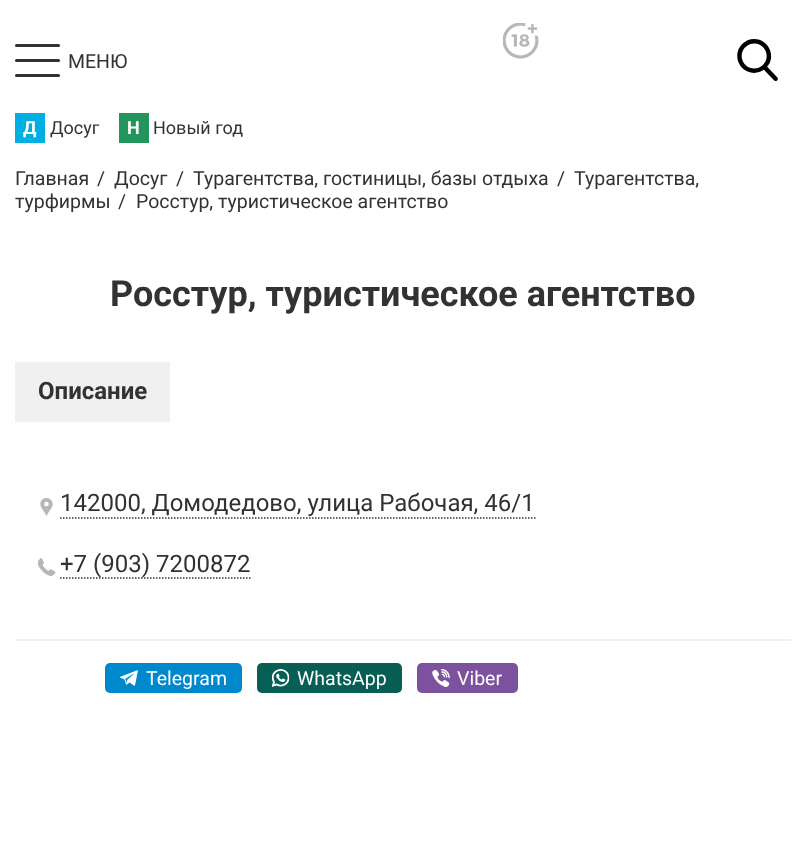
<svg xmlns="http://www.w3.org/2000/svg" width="805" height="855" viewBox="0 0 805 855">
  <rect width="100%" height="100%" fill="#ffffff"/>
  <rect x="15" y="44" width="45" height="3" rx="1.5" fill="#323232"/>
  <rect x="15" y="59" width="45" height="3" rx="1.5" fill="#323232"/>
  <rect x="15" y="74" width="45" height="3" rx="1.5" fill="#323232"/>
  <text x="68" y="68" font-family="Roboto" font-size="19.5" fill="#323232">МЕНЮ</text>
  <image x="503" y="23" width="36" height="36" href="img1.png"/>
  <image x="737" y="39" width="41" height="42" href="img2.png"/>
  <rect x="15" y="113" width="30" height="30" fill="#00afe1"/>
  <text x="23" y="134" font-family="Roboto" font-size="18" font-weight="bold" fill="#ffffff">Д</text>
  <text x="50" y="134" font-family="Roboto" font-size="18" fill="#323232">Досуг</text>
  <rect x="119" y="113" width="30" height="30" fill="#22955d"/>
  <text x="127" y="134" font-family="Roboto" font-size="18" font-weight="bold" fill="#ffffff">Н</text>
  <text x="153" y="134" font-family="Roboto" font-size="18" fill="#323232">Новый год</text>
  <text x="15" y="185" font-family="Roboto" font-size="19.5" fill="#323232">Главная</text>
  <text x="97" y="185" font-family="Roboto" font-size="19.5" fill="#323232">/</text>
  <text x="114" y="185" font-family="Roboto" font-size="19.5" fill="#323232">Досуг</text>
  <text x="176" y="185" font-family="Roboto" font-size="19.5" fill="#323232">/</text>
  <text x="193" y="185" font-family="Roboto" font-size="19.5" fill="#323232">Турагентства, гостиницы, базы отдыха</text>
  <text x="557" y="185" font-family="Roboto" font-size="19.5" fill="#323232">/</text>
  <text x="574" y="185" font-family="Roboto" font-size="19.5" fill="#323232">Турагентства,</text>
  <text x="15" y="208" font-family="Roboto" font-size="19.5" fill="#323232">турфирмы</text>
  <text x="118" y="208" font-family="Roboto" font-size="19.5" fill="#323232">/</text>
  <text x="136" y="208" font-family="Roboto" font-size="19.5" fill="#323232">Росстур, туристическое агентство</text>
  <text x="110" y="306" font-family="Roboto" font-size="36" font-weight="bold" fill="#323232">Росстур, туристическое агентство</text>
  <rect x="15" y="362" width="155" height="60" fill="#f0f0f0"/>
  <text x="38" y="399" font-family="Roboto" font-size="24" font-weight="bold" fill="#323232">Описание</text>
  <image x="40" y="498" width="13" height="18" href="img3.png"/>
  <path d="M60 518H535.5" fill="none" stroke="#323232" stroke-width="1.5" stroke-dasharray="1.5 1.5"/>
  <text x="60" y="511" font-family="Roboto" font-size="24" fill="#323232">142000, Домодедово, улица Рабочая, 46/1</text>
  <image x="38" y="558" width="18" height="18" href="img4.png"/>
  <path d="M60 578H250.5" fill="none" stroke="#323232" stroke-width="1.5" stroke-dasharray="1.5 1.5"/>
  <text x="60" y="572" font-family="Roboto" font-size="24" fill="#323232">+7 (903) 7200872</text>
  <rect x="15" y="639" width="776" height="2" fill="#f0f0f0"/>
  <rect x="105" y="663" width="137" height="30" rx="5" fill="#0088cc"/>
  <image x="120" y="670" width="18" height="16" href="img5.png"/>
  <text x="146" y="685" font-family="Roboto" font-size="19.5" fill="#ffffff">Telegram</text>
  <rect x="257" y="663" width="145" height="30" rx="5" fill="#075e54"/>
  <image x="271" y="669" width="19" height="18" href="img6.png"/>
  <text x="297" y="685" font-family="Roboto" font-size="19.5" fill="#ffffff">WhatsApp</text>
  <rect x="417" y="663" width="101" height="30" rx="5" fill="#7c529e"/>
  <image x="432" y="669" width="18" height="18" href="img7.png"/>
  <text x="457" y="685" font-family="Roboto" font-size="19.5" fill="#ffffff">Viber</text>
</svg>
